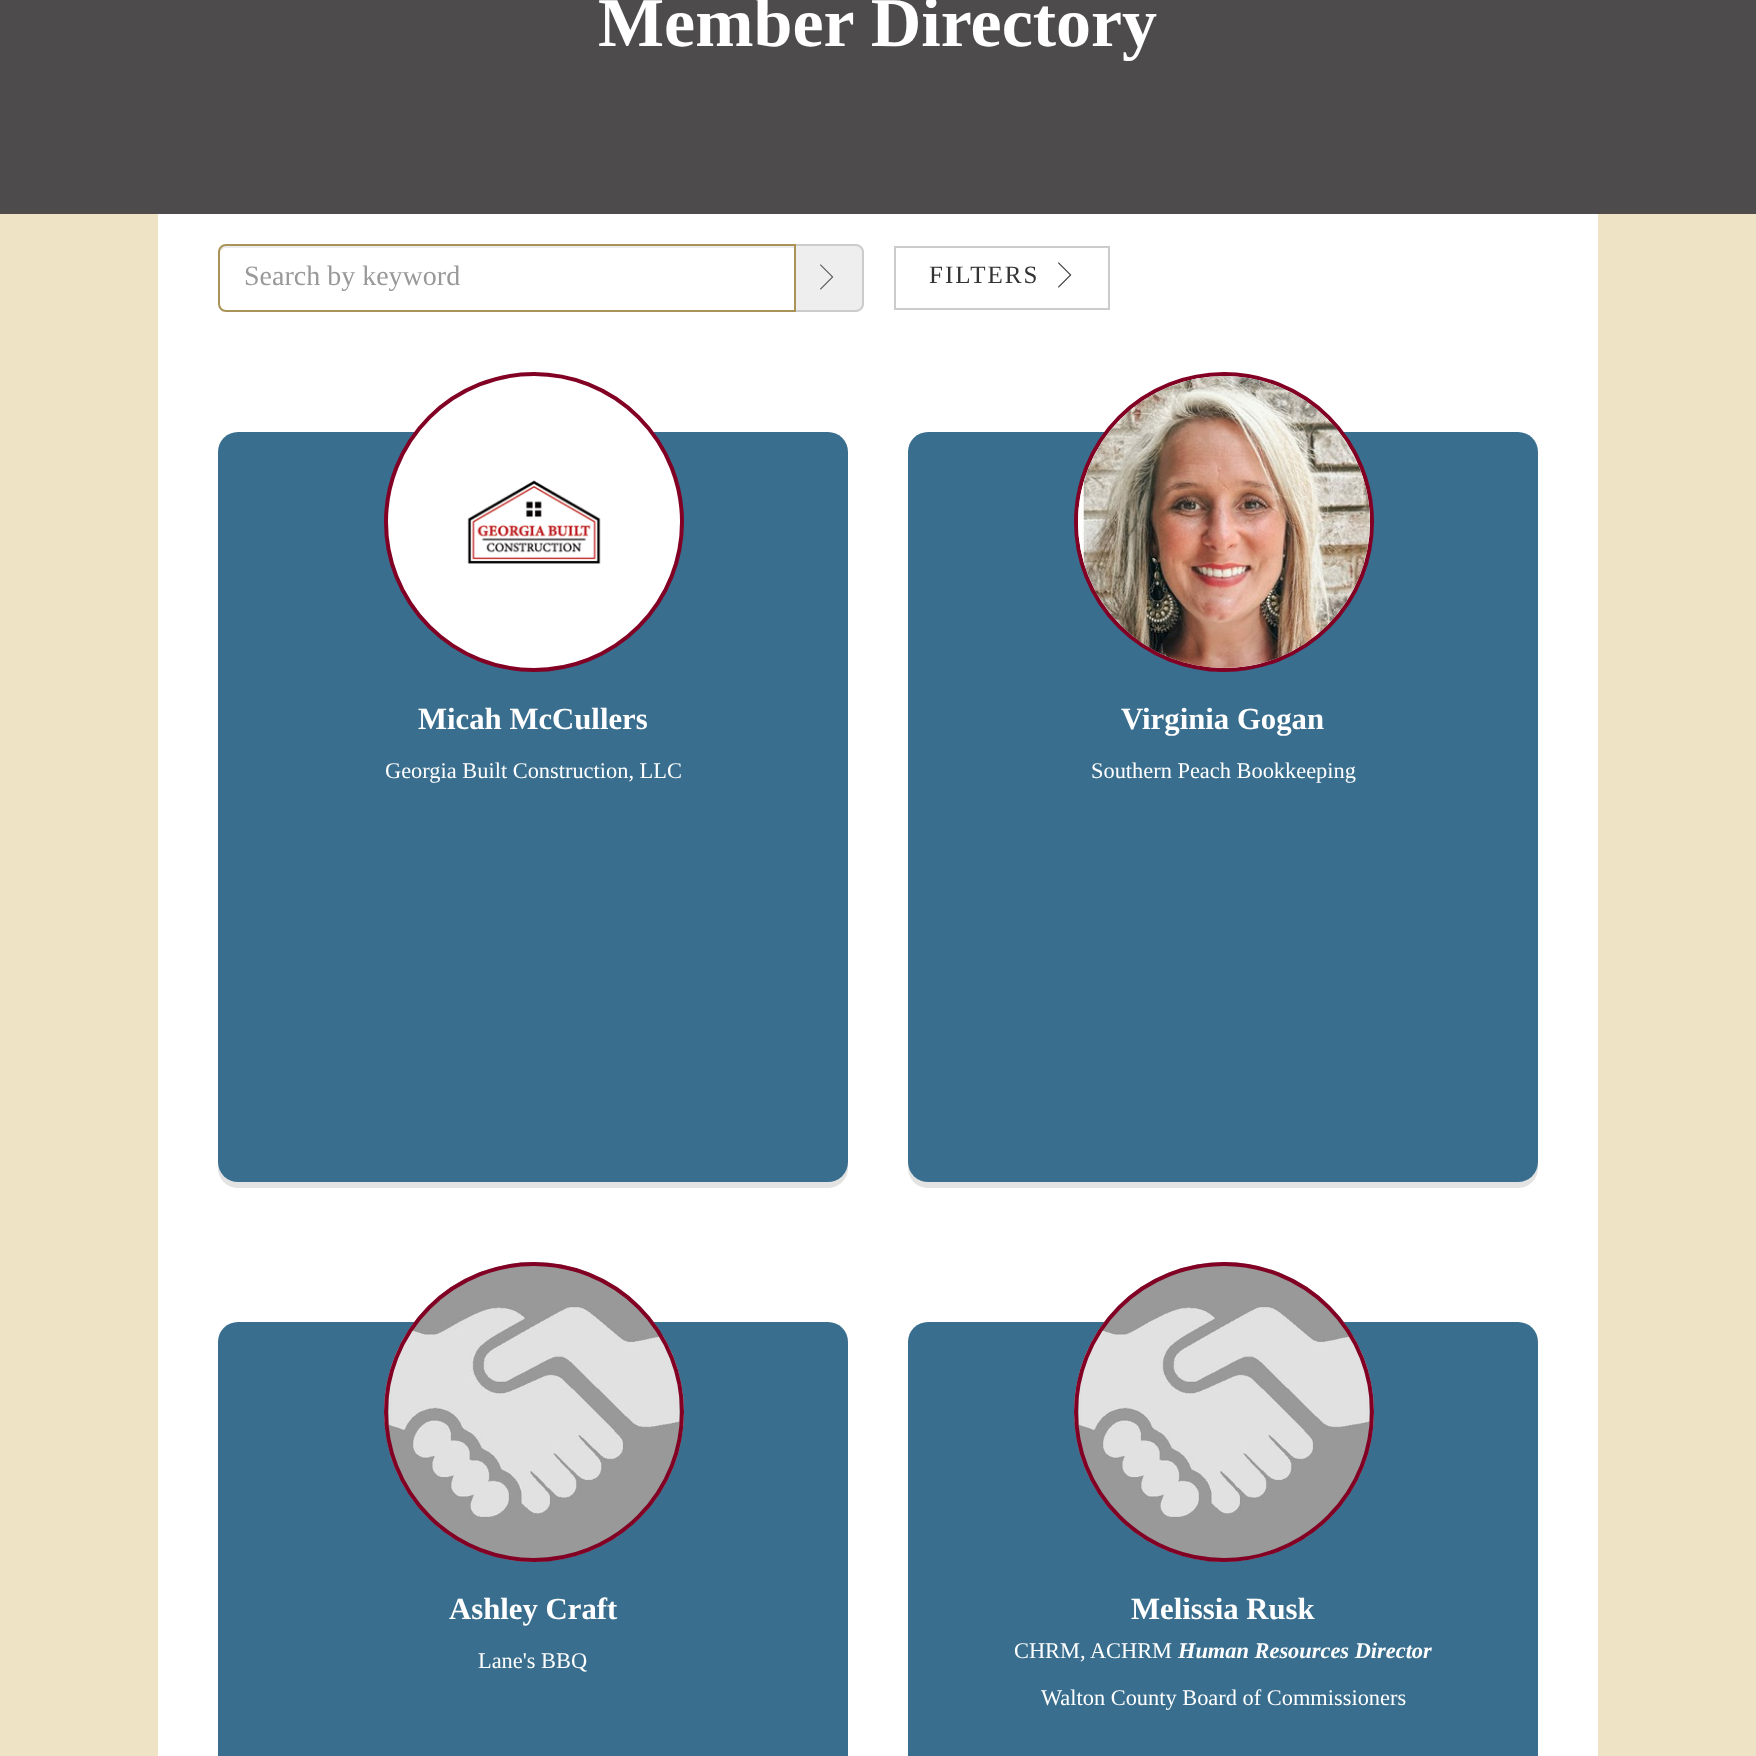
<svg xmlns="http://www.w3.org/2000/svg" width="1756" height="1756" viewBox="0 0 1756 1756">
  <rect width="100%" height="100%" fill="#eee3c5"/>
  <rect x="0" y="0" width="1756" height="214" fill="#4d4b4c"/>
  <text x="598" y="46" font-family="Liberation Serif" font-size="70" font-weight="bold" fill="#ffffff">Member Directory</text>
  <rect x="158" y="214" width="1440" height="1542" fill="#ffffff"/>
  <path d="M226 248H794V246H226C221 246 220 250 220 254C220 251 223 248 226 248Z" fill="#ececec"/>
  <path d="M226 245H795V311H226C222 311 219 308 219 304V252C219 248 222 245 226 245Z" fill="none" stroke="#a99357" stroke-width="2"/>
  <text x="244" y="285" font-family="Liberation Serif" font-size="28" fill="#999999">Search by keyword</text>
  <path d="M796 244H856C860.5 244 864 247.5 864 252V304C864 308.5 860.5 312 856 312H796Z" fill="#eeeeee"/>
  <path d="M796 244H856C860 244 864 248 864 252V304C864 308 860 312 856 312H796ZM796 246H856C859 246 862 249 862 252V304C862 307 859 310 856 310H796Z" fill="#cccccc" fill-rule="evenodd"/>
  <image x="820" y="264" width="14" height="26" href="img1.png"/>
  <rect x="895" y="247" width="214" height="62" fill="none" stroke="#cccccc" stroke-width="2"/>
  <text x="929" y="283" font-family="Liberation Serif" font-size="25" letter-spacing="2" fill="#333333">FILTERS</text>
  <image x="1058" y="262" width="14" height="26" href="img2.png"/>
  <path d="M218 1162V1168C218 1179 227 1188 238 1188H828C839 1188 848 1179 848 1168V1162C848 1173 839 1182 828 1182H238C227 1182 218 1173 218 1162Z" fill="#e3e3e3"/>
  <rect x="218" y="432" width="630" height="750" rx="20" fill="#396e8e"/>
  <circle cx="534" cy="522" r="148" fill="#ffffff" stroke="#820024" stroke-width="4"/>
  <image x="467" y="480" width="134" height="84" href="img3.png"/>
  <text x="418" y="729" font-family="Liberation Serif" font-size="30.75" font-weight="bold" fill="#ffffff">Micah McCullers</text>
  <text x="385" y="778" font-family="Liberation Serif" font-size="22.4" fill="#ffffff">Georgia Built Construction, LLC</text>
  <path d="M908 1162V1168C908 1179 917 1188 928 1188H1518C1529 1188 1538 1179 1538 1168V1162C1538 1173 1529 1182 1518 1182H928C917 1182 908 1173 908 1162Z" fill="#e3e3e3"/>
  <rect x="908" y="432" width="630" height="750" rx="20" fill="#396e8e"/>
  <circle cx="1224" cy="522" r="148" fill="#ffffff" stroke="#820024" stroke-width="4"/>
  <image x="1078" y="376" width="292" height="292" href="img4.png"/>
  <text x="1121" y="729" font-family="Liberation Serif" font-size="30.75" font-weight="bold" fill="#ffffff">Virginia Gogan</text>
  <text x="1091" y="778" font-family="Liberation Serif" font-size="22.4" fill="#ffffff">Southern Peach Bookkeeping</text>
  <rect x="218" y="1322" width="630" height="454" rx="20" fill="#396e8e"/>
  <image x="384" y="1262" width="300" height="300" href="img5.png"/>
  <circle cx="534" cy="1412" r="148" fill="none" stroke="#820024" stroke-width="4"/>
  <text x="449" y="1619" font-family="Liberation Serif" font-size="30.75" font-weight="bold" fill="#ffffff">Ashley Craft</text>
  <text x="478" y="1668" font-family="Liberation Serif" font-size="22.4" fill="#ffffff">Lane's BBQ</text>
  <rect x="908" y="1322" width="630" height="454" rx="20" fill="#396e8e"/>
  <image x="1074" y="1262" width="300" height="300" href="img6.png"/>
  <circle cx="1224" cy="1412" r="148" fill="none" stroke="#820024" stroke-width="4"/>
  <text x="1131" y="1619" font-family="Liberation Serif" font-size="30.75" font-weight="bold" fill="#ffffff">Melissia Rusk</text>
  <text x="1014" y="1658" font-family="Liberation Serif" font-size="22.4" fill="#ffffff">CHRM, ACHRM</text>
  <text x="1178" y="1658" font-family="Liberation Serif" font-size="22.4" font-weight="bold" font-style="italic" fill="#ffffff">Human Resources Director</text>
  <text x="1041" y="1705" font-family="Liberation Serif" font-size="22.4" fill="#ffffff">Walton County Board of Commissioners</text>
</svg>
